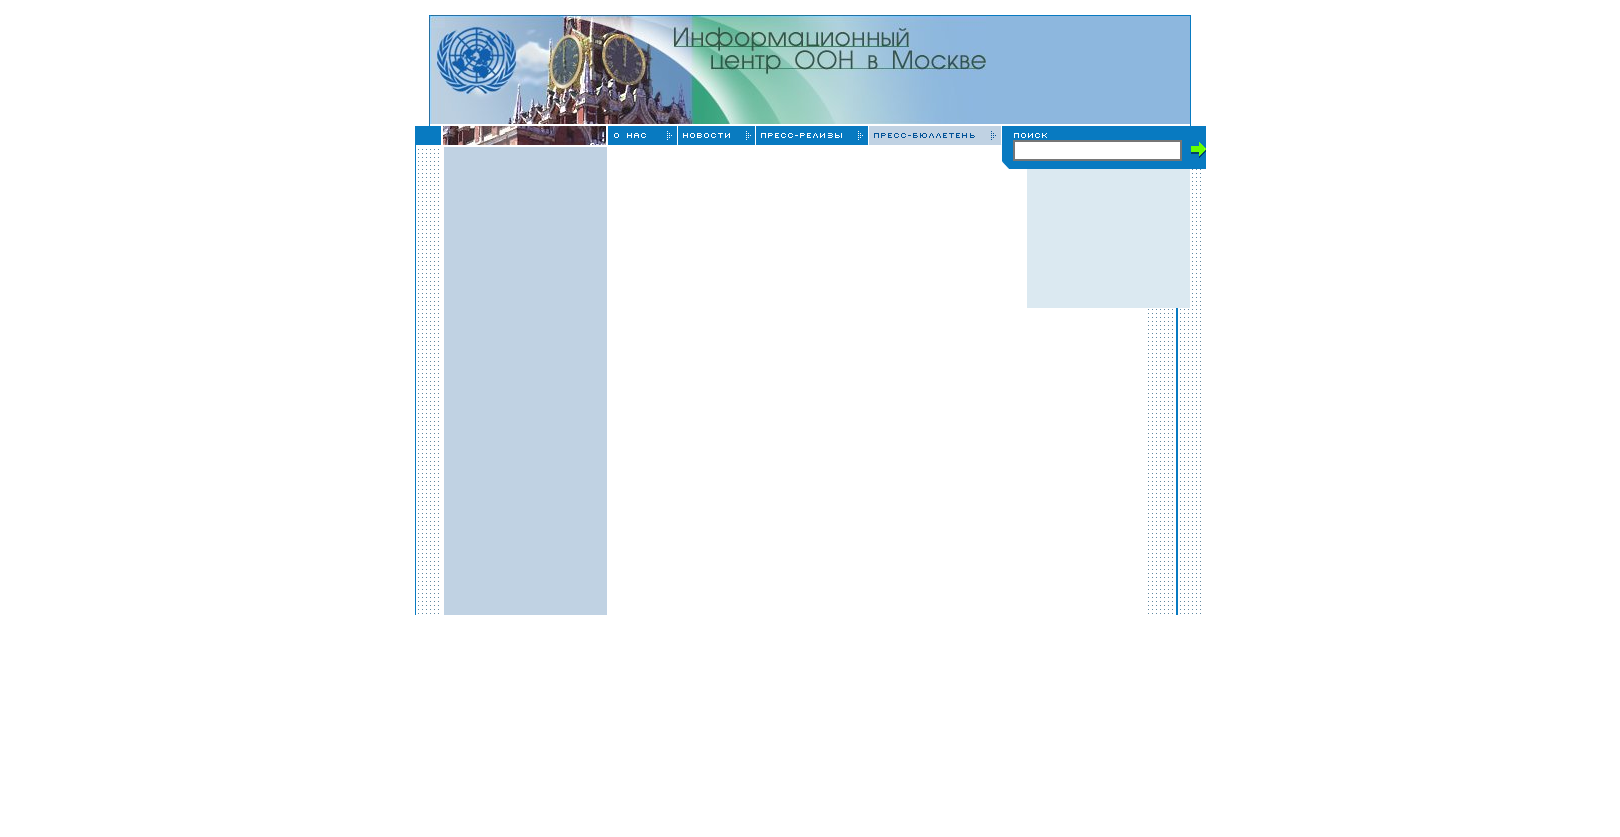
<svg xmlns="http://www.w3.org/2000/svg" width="1620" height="837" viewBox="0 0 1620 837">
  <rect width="100%" height="100%" fill="#ffffff"/>
  <image x="429" y="15" width="557" height="109" href="img1.png"/>
  <rect x="986" y="15" width="204" height="1" fill="#087ac1"/>
  <rect x="986" y="16" width="204" height="108" fill="#8db7de"/>
  <rect x="1190" y="15" width="1" height="111" fill="#087ac1"/>
  <rect x="429" y="124" width="1" height="2" fill="#087ac1"/>
  <image x="415" y="126" width="786" height="489" href="img2.png"/>
  <rect x="416" y="126" width="25" height="19" fill="#087ac1"/>
  <image x="443" y="126" width="163" height="19" href="img3.png"/>
  <image x="606" y="126" width="72" height="19" href="img4.png"/>
  <image x="678" y="126" width="78" height="19" href="img5.png"/>
  <image x="756" y="126" width="113" height="19" href="img6.png"/>
  <image x="869" y="126" width="133" height="19" href="img7.png"/>
  <rect x="418" y="145" width="189" height="2" fill="#ffffff"/>
  <rect x="1002" y="126" width="204" height="43" fill="#087ac1"/>
  <image x="1014" y="133" width="33" height="5" href="img8.png"/>
  <rect x="1014" y="141" width="167" height="19" fill="#ffffff" stroke="#767676" stroke-width="2"/>
  <image x="1191" y="142" width="15" height="16" href="img9.png"/>
  <image x="1002" y="161" width="7" height="8" href="img10.png"/>
  <rect x="1027" y="169" width="163" height="139" fill="#dbe9f1"/>
</svg>
